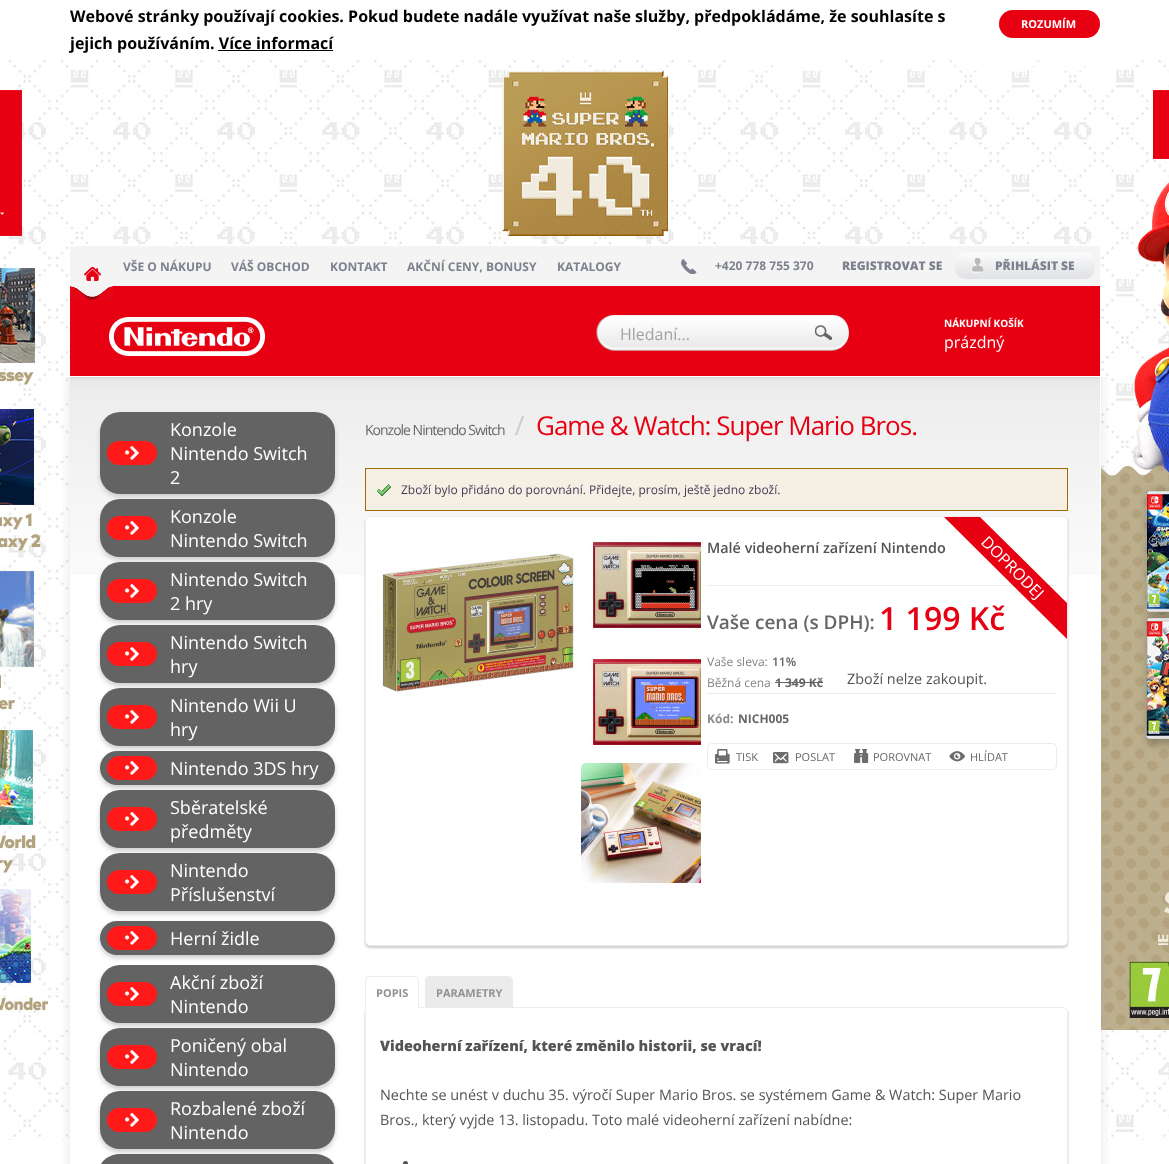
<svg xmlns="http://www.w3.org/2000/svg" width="1169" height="1164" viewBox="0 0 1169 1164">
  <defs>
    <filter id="blur1" x="-50%" y="-200%" width="200%" height="500%"><feGaussianBlur stdDeviation="2.5"/></filter>
    <filter id="blur2" x="-50%" y="-200%" width="200%" height="500%"><feGaussianBlur stdDeviation="1"/></filter>
    <clipPath id="clip1"><path d="M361 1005H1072V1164H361ZM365 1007H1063C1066 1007 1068 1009 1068 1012V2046C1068 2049 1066 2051 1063 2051H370C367 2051 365 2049 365 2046Z" clip-rule="evenodd"/></clipPath>
  </defs>
  <rect width="100%" height="100%" fill="#ffffff"/>
  <text x="70" y="22" font-family="Open Sans" font-size="16" font-weight="bold" fill="#000000">Webové stránky používají cookies. Pokud budete nadále využívat naše služby, předpokládáme, že souhlasíte s</text>
  <text x="70" y="49" font-family="Open Sans" font-size="16" font-weight="bold" fill="#000000">jejich používáním. Více informací</text>
  <rect x="218" y="50" width="115" height="1" fill="#000000"/>
  <rect x="999" y="10" width="101" height="28" rx="14" fill="#e60012"/>
  <text x="1021" y="28" font-family="Open Sans" font-size="11" font-weight="bold" fill="#ffffff">ROZUMÍM</text>
  <image x="0" y="60" width="1169" height="1080" href="img1.png"/>
  <image x="63" y="377" width="1045" height="787" href="img2.png"/>
  <rect x="70" y="575" width="1030" height="565" fill="#ffffff"/>
  <image x="70" y="377" width="1030" height="198" href="img3.png"/>
  <rect x="70" y="286" width="1030" height="90" fill="#e60012"/>
  <rect x="70" y="246" width="1030" height="40" fill="#f4f4f4"/>
  <image x="70" y="267" width="43" height="33" href="img4.png"/>
  <text x="123" y="271" font-family="Open Sans" font-size="12" font-weight="bold" fill="#7e828e">VŠE O NÁKUPU</text>
  <text x="231" y="271" font-family="Open Sans" font-size="12" font-weight="bold" fill="#7e828e">VÁŠ OBCHOD</text>
  <text x="330" y="271" font-family="Open Sans" font-size="12" font-weight="bold" fill="#7e828e">KONTAKT</text>
  <text x="407" y="271" font-family="Open Sans" font-size="12" font-weight="bold" fill="#7e828e">AKČNÍ CENY, BONUSY</text>
  <text x="557" y="271" font-family="Open Sans" font-size="12" font-weight="bold" fill="#7e828e">KATALOGY</text>
  <image x="681" y="259" width="16" height="15" href="img5.png"/>
  <text x="715" y="270" font-family="Open Sans" font-size="12" font-weight="bold" fill="#7e828e">+420 778 755 370</text>
  <text x="842" y="270" font-family="Open Sans" font-size="12" font-weight="800" fill="#7e828e">REGISTROVAT SE</text>
  <rect x="955" y="252" width="140" height="27" rx="10" fill="#f9f9fa"/>
  <image x="955" y="258" width="140" height="21" href="img6.png"/>
  <image x="971" y="258" width="13" height="15" href="img7.png"/>
  <text x="995" y="270" font-family="Open Sans" font-size="12" font-weight="800" fill="#7e828e">PŘIHLÁSIT SE</text>
  <image x="109" y="317" width="156" height="39" href="img8.png"/>
  <image x="596" y="315" width="253" height="36" href="img9.png"/>
  <text x="620" y="340" font-family="Open Sans" font-size="16" fill="#a2a2a2">Hledaní...</text>
  <text x="944" y="327" font-family="Open Sans" font-size="10" font-weight="bold" fill="#ffffff">NÁKUPNÍ KOŠÍK</text>
  <text x="944" y="348" font-family="Open Sans" font-size="16" fill="#ffffff">prázdný</text>
  <rect x="100" y="415" width="235" height="82" rx="20" fill="#cccccc" filter="url(#blur1)"/>
  <rect x="100" y="412" width="235" height="82" rx="20" fill="#646363"/>
  <text x="170" y="436" font-family="Open Sans" font-size="18" fill="#ffffff">Konzole</text>
  <rect x="107" y="441" width="50" height="24" rx="12" fill="#ff1919"/>
  <image x="125" y="446" width="14" height="14" href="img10.png"/>
  <text x="170" y="460" font-family="Open Sans" font-size="18" fill="#ffffff">Nintendo Switch</text>
  <text x="170" y="484" font-family="Open Sans" font-size="18" fill="#ffffff">2</text>
  <rect x="100" y="502" width="235" height="58" rx="20" fill="#cccccc" filter="url(#blur1)"/>
  <rect x="100" y="499" width="235" height="58" rx="20" fill="#646363"/>
  <rect x="107" y="516" width="50" height="24" rx="12" fill="#ff1919"/>
  <image x="125" y="521" width="14" height="14" href="img10.png"/>
  <text x="170" y="523" font-family="Open Sans" font-size="18" fill="#ffffff">Konzole</text>
  <text x="170" y="547" font-family="Open Sans" font-size="18" fill="#ffffff">Nintendo Switch</text>
  <rect x="100" y="565" width="235" height="58" rx="20" fill="#cccccc" filter="url(#blur1)"/>
  <rect x="100" y="562" width="235" height="58" rx="20" fill="#646363"/>
  <rect x="107" y="579" width="50" height="24" rx="12" fill="#ff1919"/>
  <image x="125" y="584" width="14" height="14" href="img10.png"/>
  <text x="170" y="586" font-family="Open Sans" font-size="18" fill="#ffffff">Nintendo Switch</text>
  <text x="170" y="610" font-family="Open Sans" font-size="18" fill="#ffffff">2 hry</text>
  <rect x="100" y="628" width="235" height="58" rx="20" fill="#cccccc" filter="url(#blur1)"/>
  <rect x="100" y="625" width="235" height="58" rx="20" fill="#646363"/>
  <rect x="107" y="642" width="50" height="24" rx="12" fill="#ff1919"/>
  <image x="125" y="647" width="14" height="14" href="img10.png"/>
  <text x="170" y="649" font-family="Open Sans" font-size="18" fill="#ffffff">Nintendo Switch</text>
  <text x="170" y="673" font-family="Open Sans" font-size="18" fill="#ffffff">hry</text>
  <rect x="100" y="691" width="235" height="58" rx="20" fill="#cccccc" filter="url(#blur1)"/>
  <rect x="100" y="688" width="235" height="58" rx="20" fill="#646363"/>
  <rect x="107" y="705" width="50" height="24" rx="12" fill="#ff1919"/>
  <image x="125" y="710" width="14" height="14" href="img10.png"/>
  <text x="170" y="712" font-family="Open Sans" font-size="18" fill="#ffffff">Nintendo Wii U</text>
  <text x="170" y="736" font-family="Open Sans" font-size="18" fill="#ffffff">hry</text>
  <rect x="100" y="754" width="235" height="34" rx="17" fill="#cccccc" filter="url(#blur1)"/>
  <rect x="100" y="751" width="235" height="34" rx="17" fill="#646363"/>
  <rect x="107" y="756" width="50" height="24" rx="12" fill="#ff1919"/>
  <image x="125" y="761" width="14" height="14" href="img10.png"/>
  <text x="170" y="775" font-family="Open Sans" font-size="18" fill="#ffffff">Nintendo 3DS hry</text>
  <rect x="100" y="793" width="235" height="58" rx="20" fill="#cccccc" filter="url(#blur1)"/>
  <rect x="100" y="790" width="235" height="58" rx="20" fill="#646363"/>
  <rect x="107" y="807" width="50" height="24" rx="12" fill="#ff1919"/>
  <image x="125" y="812" width="14" height="14" href="img10.png"/>
  <text x="170" y="814" font-family="Open Sans" font-size="18" fill="#ffffff">Sběratelské</text>
  <text x="170" y="838" font-family="Open Sans" font-size="18" fill="#ffffff">předměty</text>
  <rect x="100" y="856" width="235" height="58" rx="20" fill="#cccccc" filter="url(#blur1)"/>
  <rect x="100" y="853" width="235" height="58" rx="20" fill="#646363"/>
  <rect x="107" y="870" width="50" height="24" rx="12" fill="#ff1919"/>
  <image x="125" y="875" width="14" height="14" href="img10.png"/>
  <text x="170" y="877" font-family="Open Sans" font-size="18" fill="#ffffff">Nintendo</text>
  <text x="170" y="901" font-family="Open Sans" font-size="18" fill="#ffffff">Příslušenství</text>
  <rect x="100" y="924" width="235" height="34" rx="17" fill="#cccccc" filter="url(#blur1)"/>
  <rect x="100" y="921" width="235" height="34" rx="17" fill="#646363"/>
  <rect x="107" y="926" width="50" height="24" rx="12" fill="#ff1919"/>
  <image x="125" y="931" width="14" height="14" href="img10.png"/>
  <text x="170" y="945" font-family="Open Sans" font-size="18" fill="#ffffff">Herní židle</text>
  <rect x="100" y="968" width="235" height="58" rx="20" fill="#cccccc" filter="url(#blur1)"/>
  <rect x="100" y="965" width="235" height="58" rx="20" fill="#646363"/>
  <rect x="107" y="982" width="50" height="24" rx="12" fill="#ff1919"/>
  <image x="125" y="987" width="14" height="14" href="img10.png"/>
  <text x="170" y="989" font-family="Open Sans" font-size="18" fill="#ffffff">Akční zboží</text>
  <text x="170" y="1013" font-family="Open Sans" font-size="18" fill="#ffffff">Nintendo</text>
  <rect x="100" y="1031" width="235" height="58" rx="20" fill="#cccccc" filter="url(#blur1)"/>
  <rect x="100" y="1028" width="235" height="58" rx="20" fill="#646363"/>
  <rect x="107" y="1045" width="50" height="24" rx="12" fill="#ff1919"/>
  <image x="125" y="1050" width="14" height="14" href="img10.png"/>
  <text x="170" y="1052" font-family="Open Sans" font-size="18" fill="#ffffff">Poničený obal</text>
  <text x="170" y="1076" font-family="Open Sans" font-size="18" fill="#ffffff">Nintendo</text>
  <rect x="100" y="1094" width="235" height="58" rx="20" fill="#cccccc" filter="url(#blur1)"/>
  <rect x="100" y="1091" width="235" height="58" rx="20" fill="#646363"/>
  <rect x="107" y="1108" width="50" height="24" rx="12" fill="#ff1919"/>
  <image x="125" y="1113" width="14" height="14" href="img10.png"/>
  <text x="170" y="1115" font-family="Open Sans" font-size="18" fill="#ffffff">Rozbalené zboží</text>
  <text x="170" y="1139" font-family="Open Sans" font-size="18" fill="#ffffff">Nintendo</text>
  <rect x="100" y="1157" width="235" height="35" rx="20" fill="#cccccc" filter="url(#blur1)"/>
  <rect x="100" y="1154" width="235" height="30" rx="20" fill="#646363"/>
  <text x="365" y="435" font-family="Open Sans" font-size="14" letter-spacing="-1" fill="#666666">Konzole Nintendo Switch</text>
  <image x="515" y="416" width="9" height="19" href="img11.png"/>
  <text x="536" y="435" font-family="Open Sans" font-size="26" letter-spacing="-1" fill="#e60012">Game &amp; Watch: Super Mario Bros.</text>
  <rect x="366" y="469" width="701" height="41" fill="#f5efe4"/>
  <image x="377" y="484" width="14" height="12" href="img12.png"/>
  <rect x="365.5" y="468.5" width="702" height="42" fill="none" stroke="#9e6a03"/>
  <text x="401" y="494" font-family="Open Sans" font-size="12" fill="#423c56">Zboží bylo přidáno do porovnání. Přidejte, prosím, ještě jedno zboží.</text>
  <rect x="365" y="518" width="703" height="430" rx="5" fill="#cccccc" filter="url(#blur2)"/>
  <rect x="365.5" y="516.5" width="702" height="429" rx="4.5" fill="#ffffff" stroke="#ebebeb"/>
  <image x="378" y="551" width="200" height="144" href="img13.png"/>
  <image x="589" y="538" width="112" height="95" href="img14.png"/>
  <image x="589" y="655" width="112" height="95" href="img15.png"/>
  <image x="581" y="763" width="120" height="120" href="img16.png"/>
  <rect x="707" y="585" width="350" height="1" fill="#ebebeb"/>
  <text x="707" y="553" font-family="Open Sans" font-size="14.4" font-weight="600" fill="#545454">Malé videoherní zařízení Nintendo</text>
  <path d="M1067 639L944 517H980L1067 603Z" fill="#e60012"/>
  <text x="980" y="543" transform="rotate(45 980 543)" font-family="Open Sans" font-size="16" fill="#ffffff">DOPRODEJ</text>
  <text x="707" y="629" font-family="Open Sans" font-size="19" font-weight="600" fill="#666666">Vaše cena (s DPH):</text>
  <text x="879" y="630" font-family="Open Sans" font-size="32" font-weight="600" fill="#e60012">1 199 Kč</text>
  <text x="707" y="666" font-family="Open Sans" font-size="12" fill="#858585">Vaše sleva:</text>
  <text x="772" y="666" font-family="Open Sans" font-size="12" font-weight="600" fill="#666666">11%</text>
  <text x="707" y="687" font-family="Open Sans" font-size="12" fill="#858585">Běžná cena</text>
  <text x="775" y="687" font-family="Open Sans" font-size="12" font-weight="bold" fill="#666666">1 349 Kč</text>
  <rect x="775" y="682" width="48" height="1" fill="#676767"/>
  <text x="847" y="684" font-family="Open Sans" font-size="14.4" fill="#545454">Zboží nelze zakoupit.</text>
  <rect x="707" y="693" width="350" height="1" fill="#ebebeb"/>
  <text x="707" y="723" font-family="Open Sans" font-size="12" font-weight="bold" fill="#8b8b8b">Kód:</text>
  <text x="738" y="723" font-family="Open Sans" font-size="12" font-weight="bold" fill="#666666">NICH005</text>
  <rect x="707.5" y="743.5" width="349" height="26" rx="4.5" fill="none" stroke="#ebebeb"/>
  <image x="715" y="749" width="15" height="15" href="img17.png"/>
  <text x="736" y="761" font-family="Open Sans" font-size="11" fill="#666666">TISK</text>
  <image x="773" y="752" width="16" height="12" href="img18.png"/>
  <text x="795" y="761" font-family="Open Sans" font-size="11" fill="#666666">POSLAT</text>
  <image x="854" y="749" width="15" height="14" href="img19.png"/>
  <text x="873" y="761" font-family="Open Sans" font-size="11" fill="#666666">POROVNAT</text>
  <image x="949" y="751" width="16" height="11" href="img20.png"/>
  <text x="970" y="761" font-family="Open Sans" font-size="11" fill="#666666">HLÍDAT</text>
  <g clip-path="url(#clip1)">
    <rect x="365" y="1009" width="703" height="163" rx="5" fill="#cccccc" filter="url(#blur2)"/>
  </g>
  <path d="M365.5 1007.5H1063C1065.5 1007.5 1067.5 1009.5 1067.5 1012V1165C1067.5 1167.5 1065.5 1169.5 1063 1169.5H370C367.5 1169.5 365.5 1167.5 365.5 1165Z" fill="none" stroke="#ececec"/>
  <path d="M370 976H414C417 976 419 978 419 981V1009H365V981C365 978 367 976 370 976Z" fill="#ffffff"/>
  <path d="M370 976H414C417 976 419 978 419 981V1009H365V981C365 978 367 976 370 976ZM370 977H414C416 977 418 979 418 981V1009H366V981C366 979 368 977 370 977Z" fill="#ececec" fill-rule="evenodd"/>
  <text x="376" y="997" font-family="Open Sans" font-size="11" font-weight="bold" fill="#929292">POPIS</text>
  <path d="M430 976H508C511 976 513 978 513 981V1008H425V981C425 978 427 976 430 976Z" fill="#ebebeb"/>
  <path d="M430 976H508C511 976 513 978 513 981V1008H425V981C425 978 427 976 430 976ZM430 977H508C510 977 512 979 512 981V1008H426V981C426 979 428 977 430 977Z" fill="#ececec" fill-rule="evenodd"/>
  <text x="436" y="997" font-family="Open Sans" font-size="11" font-weight="bold" fill="#929292">PARAMETRY</text>
  <text x="380" y="1051" font-family="Open Sans" font-size="14.4" font-weight="800" fill="#545454">Videoherní zařízení, které změnilo historii, se vrací!</text>
  <text x="380" y="1100" font-family="Open Sans" font-size="14.4" fill="#545454">Nechte se unést v duchu 35. výročí Super Mario Bros. se systémem Game &amp; Watch: Super Mario</text>
  <text x="380" y="1125" font-family="Open Sans" font-size="14.4" fill="#545454">Bros., který vyjde 13. listopadu. Toto malé videoherní zařízení nabídne:</text>
  <circle cx="405.5" cy="1163.5" r="2.5" fill="#545454"/>
</svg>
